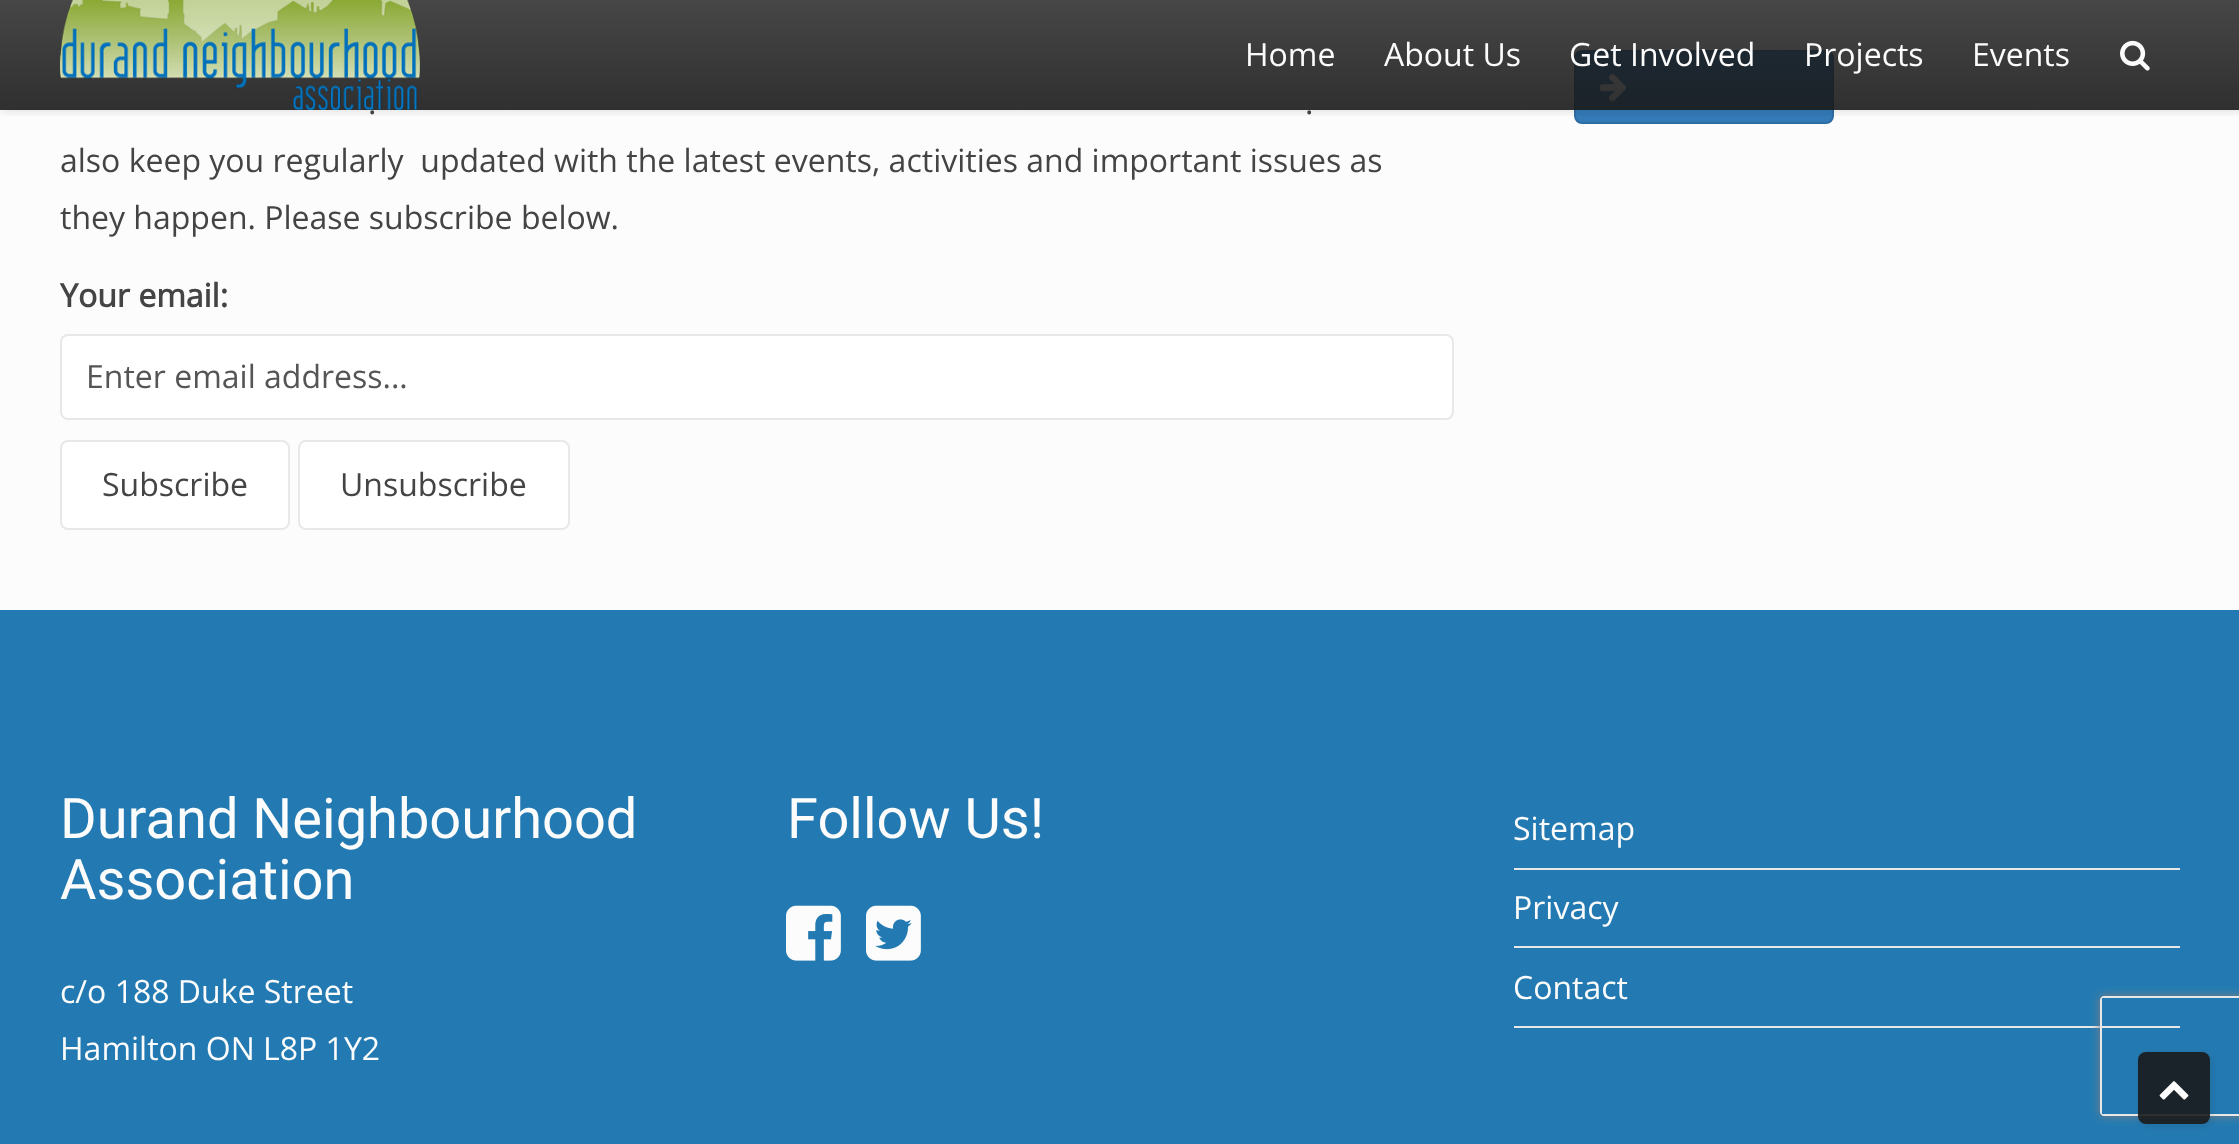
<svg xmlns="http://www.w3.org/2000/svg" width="2239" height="1144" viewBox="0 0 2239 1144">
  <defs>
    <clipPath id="clip1"><rect x="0" y="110" width="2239" height="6"/></clipPath>
    <filter id="blur1" x="-50%" y="-200%" width="200%" height="500%"><feGaussianBlur stdDeviation="5"/></filter>
    <linearGradient id="g1" gradientUnits="userSpaceOnUse" x1="1120" y1="0" x2="1120" y2="110"><stop offset="0" stop-color="#191919" stop-opacity="0.8"/><stop offset="1" stop-color="#191919" stop-opacity="0.9"/></linearGradient>
    <clipPath id="clip2"><path d="M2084 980H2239V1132H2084ZM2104 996H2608C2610 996 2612 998 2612 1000V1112C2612 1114 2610 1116 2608 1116H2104C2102 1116 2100 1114 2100 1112V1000C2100 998 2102 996 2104 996Z" clip-rule="evenodd"/></clipPath>
    <clipPath id="clip3"><path d="M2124 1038H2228V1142H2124ZM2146 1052H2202C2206.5 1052 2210 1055.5 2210 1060V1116C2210 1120.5 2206.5 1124 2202 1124H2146C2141.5 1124 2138 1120.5 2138 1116V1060C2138 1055.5 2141.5 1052 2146 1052Z" clip-rule="evenodd"/></clipPath>
  </defs>
  <rect width="100%" height="100%" fill="#fcfcfc"/>
  <rect x="1575" y="51" width="258" height="72" rx="7" fill="#337ab7" stroke="#2e6da4" stroke-width="2"/>
  <image x="1600" y="73" width="27" height="29" href="img3.png"/>
  <g clip-path="url(#clip1)">
    <rect x="2" y="2" width="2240" height="110" fill="#191919" fill-opacity="0.1" filter="url(#blur1)"/>
  </g>
  <rect x="0" y="0" width="2239" height="110" fill="url(#g1)"/>
  <image x="60" y="0" width="360" height="110" href="img1.png"/>
  <text x="1245" y="66" font-family="Open Sans" font-size="32" fill="#fcfcfc">Home</text>
  <text x="1384" y="66" font-family="Open Sans" font-size="32" fill="#fcfcfc">About Us</text>
  <text x="1569" y="66" font-family="Open Sans" font-size="32" fill="#fcfcfc">Get Involved</text>
  <text x="1804" y="66" font-family="Open Sans" font-size="32" fill="#fcfcfc">Projects</text>
  <text x="1972" y="66" font-family="Open Sans" font-size="32" fill="#fcfcfc">Events</text>
  <image x="2120" y="40" width="30" height="31" href="img2.png"/>
  <text x="368" y="114" font-family="Open Sans" font-size="32" fill="#444444">.</text>
  <text x="1305" y="114" font-family="Open Sans" font-size="32" fill="#444444">.</text>
  <text x="60" y="172" font-family="Open Sans" font-size="32" fill="#444444" xml:space="preserve">also keep you regularly  updated with the latest events, activities and important issues as</text>
  <text x="60" y="229" font-family="Open Sans" font-size="32" fill="#444444">they happen. Please subscribe below.</text>
  <text x="60" y="307" font-family="Open Sans" font-size="32" font-weight="bold" fill="#444444">Your email:</text>
  <rect x="61" y="335" width="1392" height="84" rx="7" fill="#ffffff" stroke="#e8e8e8" stroke-width="2"/>
  <text x="86" y="388" font-family="Open Sans" font-size="32" fill="#555555">Enter email address...</text>
  <rect x="61" y="441" width="228" height="88" rx="7" fill="#ffffff" stroke="#e8e8e8" stroke-width="2"/>
  <text x="102" y="496" font-family="Open Sans" font-size="32" fill="#444444">Subscribe</text>
  <rect x="299" y="441" width="270" height="88" rx="7" fill="#ffffff" stroke="#e8e8e8" stroke-width="2"/>
  <text x="340" y="496" font-family="Open Sans" font-size="32" fill="#444444">Unsubscribe</text>
  <rect x="0" y="610" width="2239" height="534" fill="#237ab2"/>
  <text x="60" y="838" font-family="Roboto" font-size="56" fill="#fcfcfc">Durand Neighbourhood</text>
  <text x="60" y="899" font-family="Roboto" font-size="56" fill="#fcfcfc">Association</text>
  <text x="60" y="1003" font-family="Open Sans" font-size="32" fill="#fcfcfc">c/o 188 Duke Street</text>
  <text x="60" y="1060" font-family="Open Sans" font-size="32" fill="#fcfcfc">Hamilton ON L8P 1Y2</text>
  <text x="787" y="838" font-family="Roboto" font-size="56" fill="#fcfcfc">Follow Us!</text>
  <image x="786" y="905" width="55" height="56" href="img4.png"/>
  <image x="866" y="905" width="55" height="56" href="img5.png"/>
  <rect x="1514" y="868" width="666" height="2" fill="#e8e8e8"/>
  <text x="1513" y="840" font-family="Open Sans" font-size="32" fill="#fcfcfc">Sitemap</text>
  <rect x="1514" y="946" width="666" height="2" fill="#e8e8e8"/>
  <text x="1513" y="919" font-family="Open Sans" font-size="32" fill="#fcfcfc">Privacy</text>
  <rect x="1514" y="1026" width="666" height="2" fill="#e8e8e8"/>
  <text x="1513" y="999" font-family="Open Sans" font-size="32" fill="#fcfcfc">Contact</text>
  <g clip-path="url(#clip2)">
    <rect x="2100" y="996" width="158" height="120" rx="4" fill="#808080" filter="url(#blur1)"/>
  </g>
  <path d="M2104 996C2102 996 2100 998 2100 1000V1112C2100 1114 2102 1116 2104 1116H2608C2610 1116 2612 1114 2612 1112V1000C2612 998 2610 996 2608 996ZM2102 998V1114H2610V998Z" fill="#e8e8e8" fill-rule="evenodd"/>
  <g clip-path="url(#clip3)">
    <rect x="2140" y="1054" width="72" height="72" rx="8" fill="#191919" fill-opacity="0.1" filter="url(#blur1)"/>
  </g>
  <rect x="2138" y="1052" width="72" height="72" rx="8" fill="#191919" fill-opacity="0.9"/>
  <image x="2159" y="1081" width="30" height="19" href="img6.png"/>
</svg>
